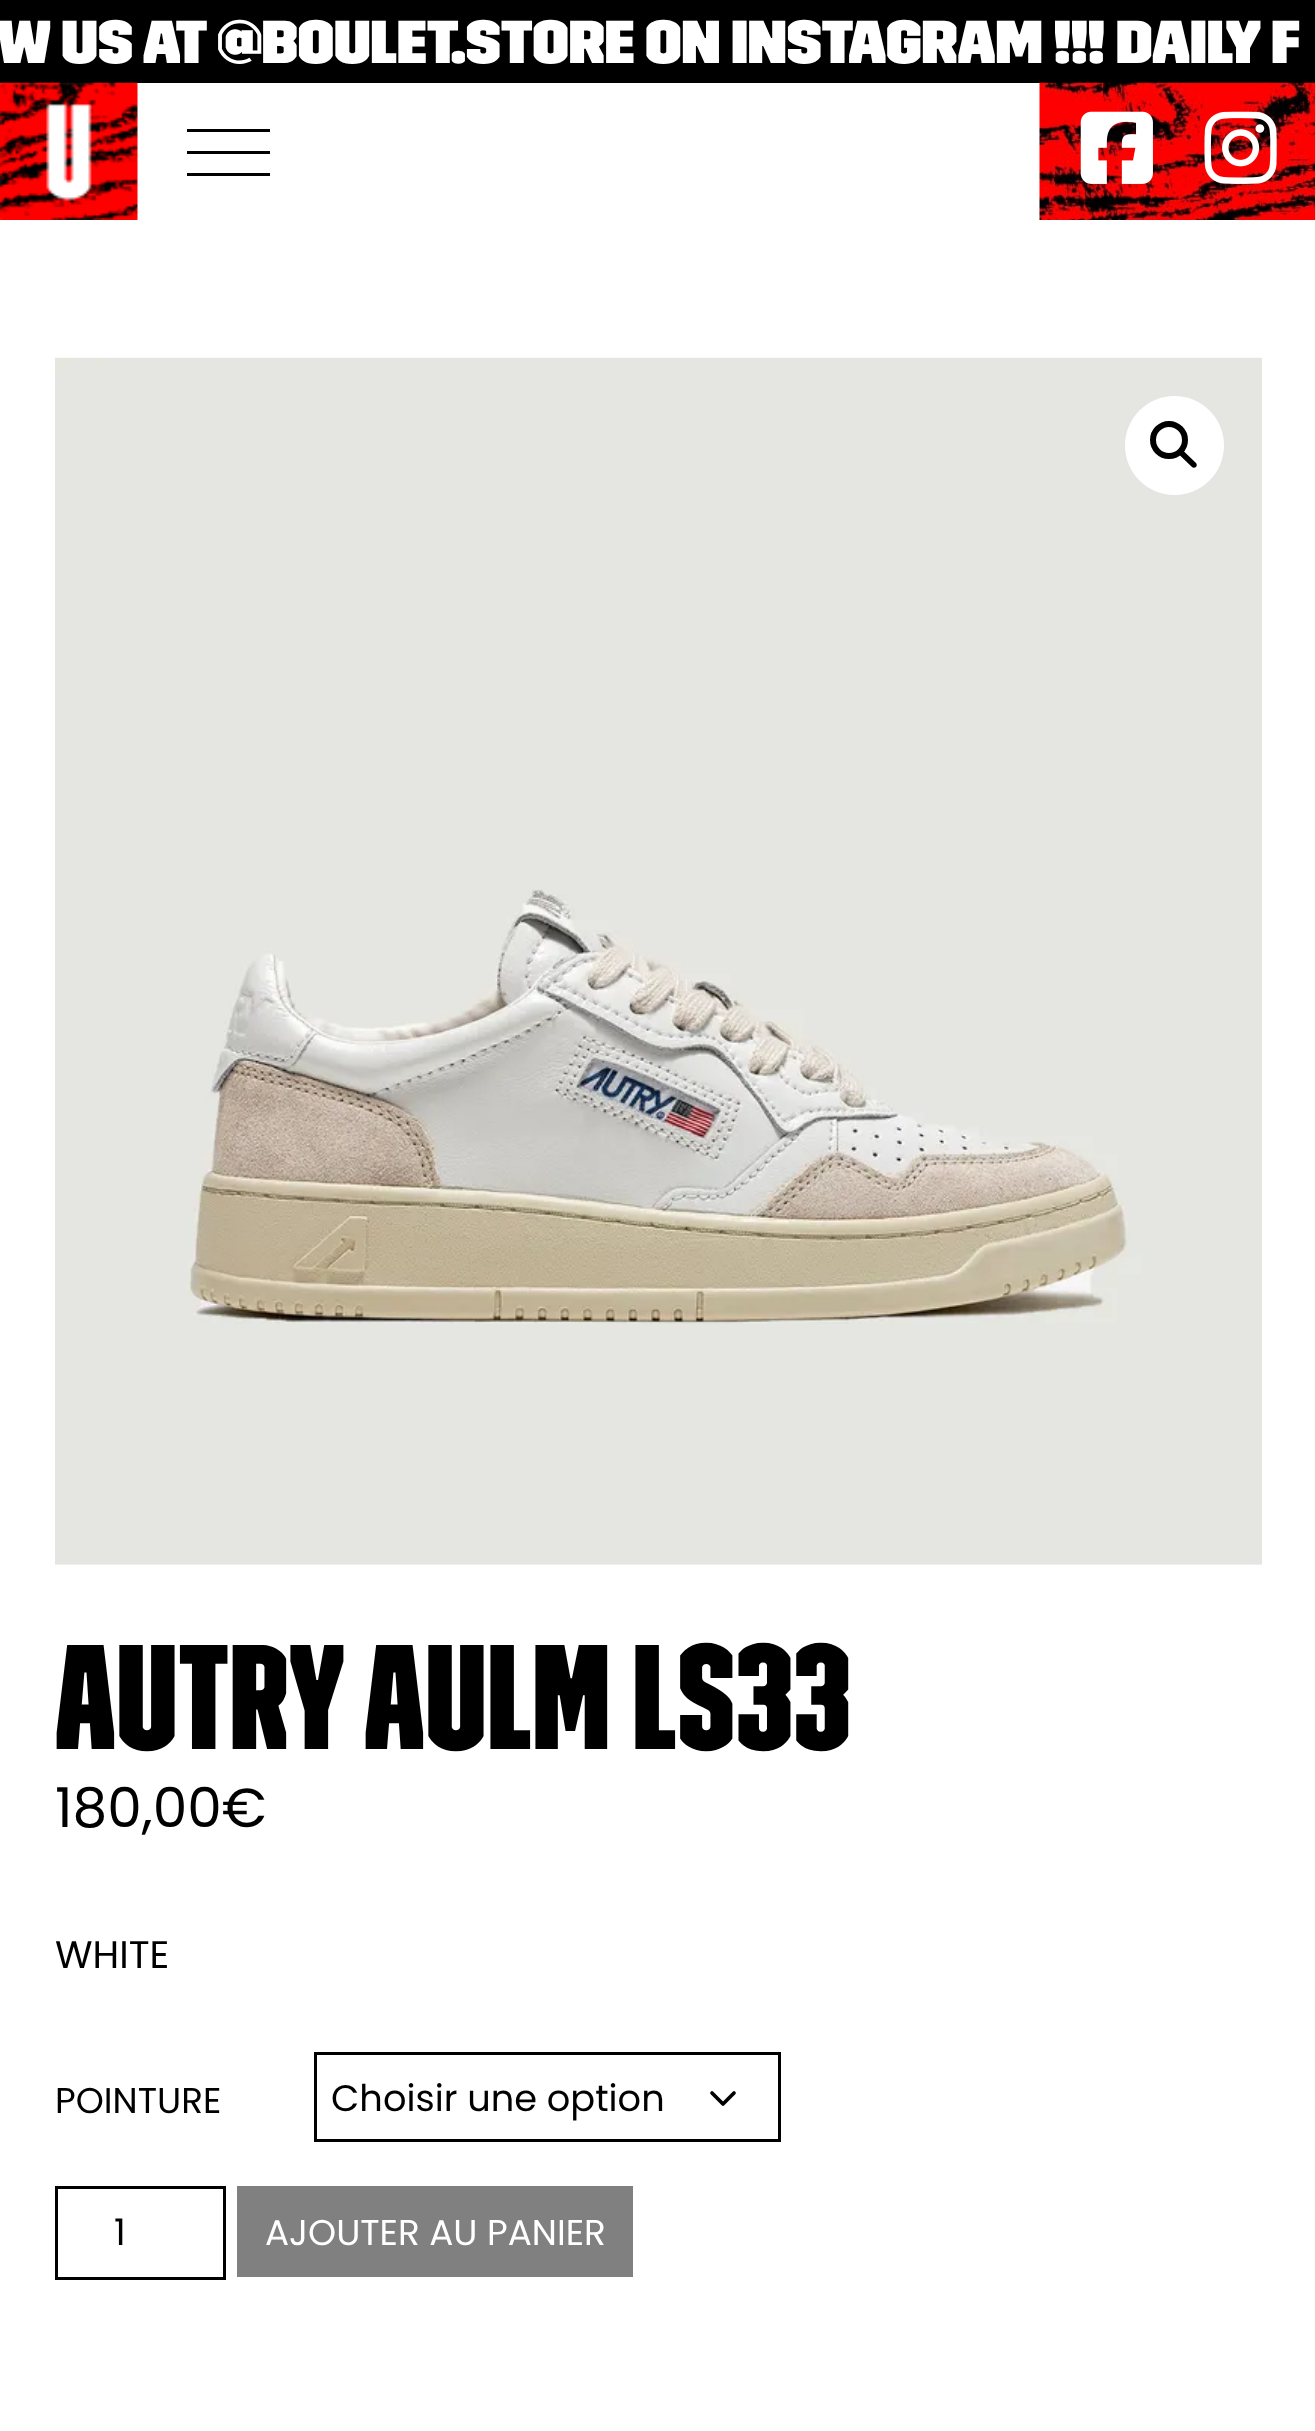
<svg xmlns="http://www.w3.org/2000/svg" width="1315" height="2431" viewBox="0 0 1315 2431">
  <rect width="100%" height="100%" fill="#ffffff"/>
  <rect x="0" y="0" width="1315" height="83" fill="#000000"/>
  <text x="-3" y="63" font-family="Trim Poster" font-size="60.5" fill="#ffffff">W US AT @BOULET.STORE ON INSTAGRAM !!! DAILY F</text>
  <image x="0" y="82" width="138" height="138" href="img1.png"/>
  <image x="1039" y="82" width="276" height="138" href="img2.png"/>
  <image x="1080" y="111" width="73" height="73" href="img3.png"/>
  <image x="1204" y="111" width="73" height="73" href="img4.png"/>
  <rect x="187" y="129" width="83" height="3" fill="#000000"/>
  <rect x="187" y="151" width="83" height="3" fill="#000000"/>
  <rect x="187" y="173" width="83" height="3" fill="#000000"/>
  <image x="55" y="357" width="1207" height="1208" href="img5.png"/>
  <circle cx="1174.5" cy="445.5" r="49.5" fill="#ffffff"/>
  <circle cx="1169" cy="440" r="16" fill="none" stroke="#000000" stroke-width="6"/>
  <path d="M1180 451.5C1181.5 450.5 1183 450.5 1184 451.5L1196 463C1197 464 1197 466 1196 467C1194.5 468 1193 468 1192 467L1180 455.5C1179 454.5 1179 452.5 1180 451.5Z" fill="#000000"/>
  <text x="55" y="1749" font-family="Trim Poster" font-size="148.5" font-weight="300" letter-spacing="1.4" fill="#000000">AUTRY AULM LS33</text>
  <text x="55" y="1827" font-family="Poppins" font-size="55" fill="#000000">180,00€</text>
  <text x="55" y="1968" font-family="Poppins" font-size="38.5" fill="#000000">WHITE</text>
  <text x="55" y="2113" font-family="Poppins" font-size="35.75" fill="#000000">POINTURE</text>
  <path d="M712 2093L723 2104L734 2093" fill="none" stroke="#000000" stroke-width="3.7" stroke-linecap="round" stroke-linejoin="round"/>
  <rect x="315.5" y="2053.5" width="464" height="87" fill="none" stroke="#000000" stroke-width="3"/>
  <text x="331" y="2111" font-family="Poppins" font-size="36.75" fill="#000000">Choisir une option</text>
  <rect x="56.5" y="2187.5" width="168" height="91" fill="none" stroke="#000000" stroke-width="3"/>
  <text x="114" y="2245" font-family="Poppins" font-size="36.75" fill="#000000">1</text>
  <rect x="237" y="2186" width="396" height="91" fill="#808080"/>
  <text x="265" y="2245" font-family="Poppins" font-size="35.75" fill="#ffffff">AJOUTER AU PANIER</text>
</svg>
